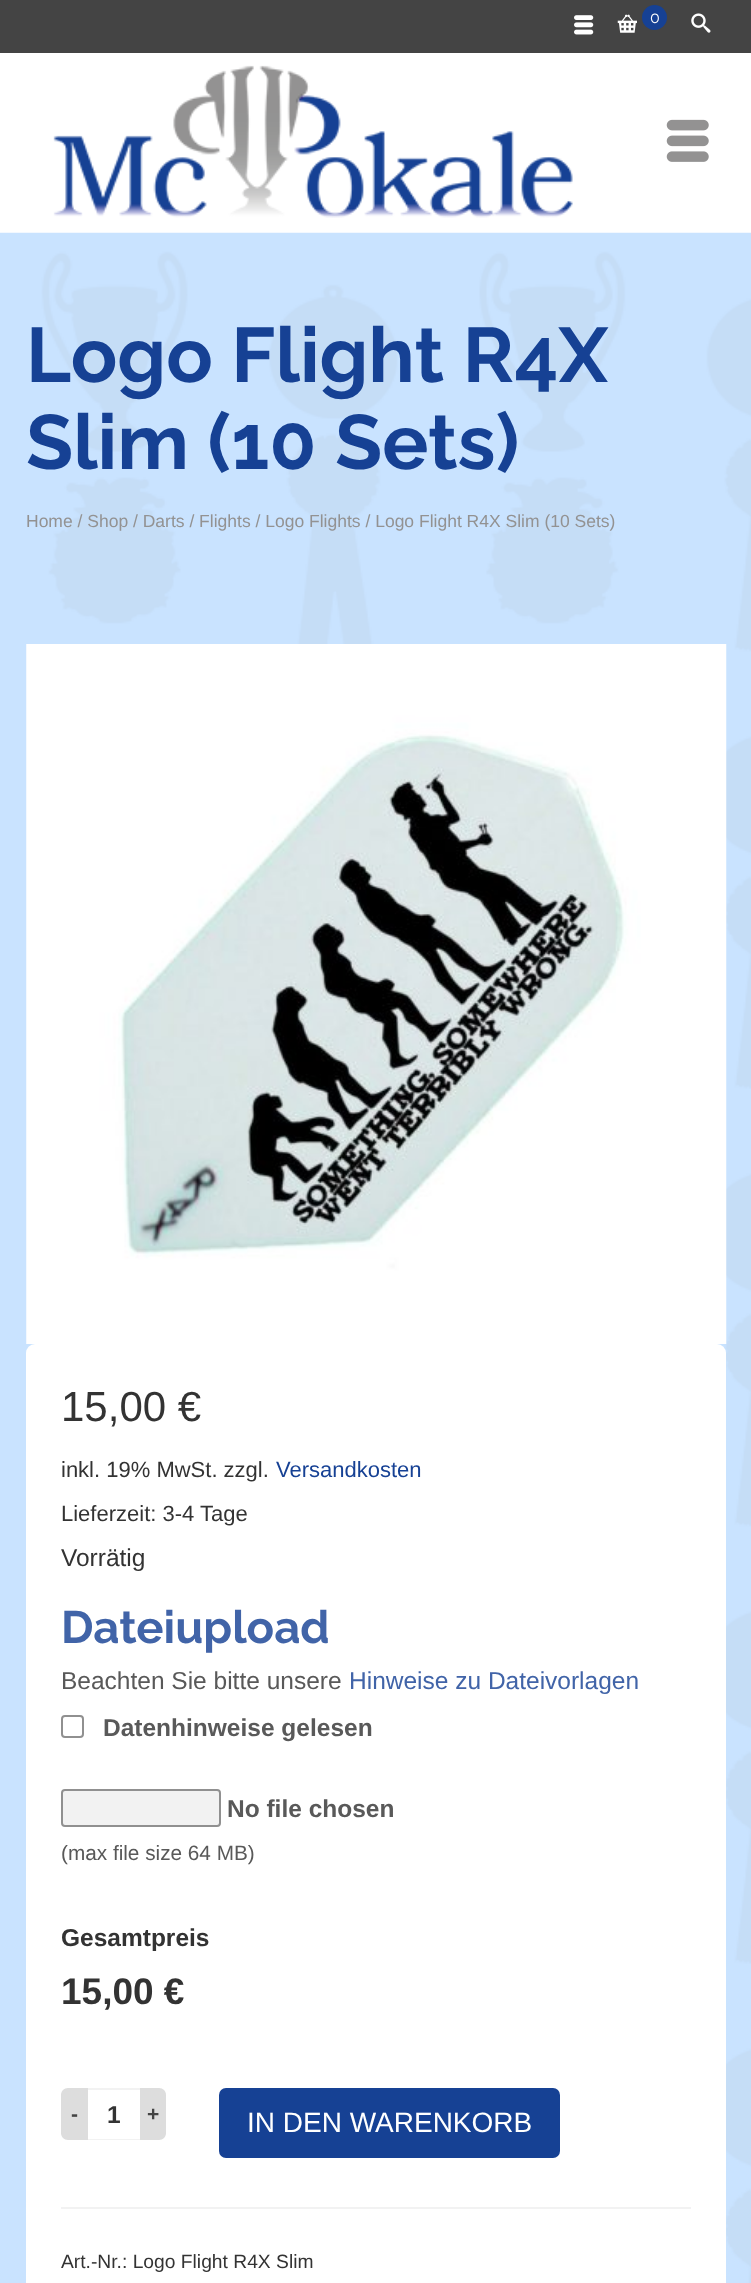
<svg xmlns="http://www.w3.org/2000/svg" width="751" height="2283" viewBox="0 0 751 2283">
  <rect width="100%" height="100%" fill="#ffffff"/>
  <rect x="0" y="0" width="751" height="53" fill="#444444"/>
  <image x="574" y="15" width="20" height="20" href="img1.png"/>
  <image x="617" y="14" width="20" height="19" href="img2.png"/>
  <circle cx="654.5" cy="17.5" r="12.5" fill="#164194"/>
  <text x="650" y="23" font-family="Raleway" font-size="16" fill="#ffffff">0</text>
  <image x="691" y="13" width="20" height="20" href="img3.png"/>
  <image x="53" y="65" width="520" height="153" href="img4.png"/>
  <image x="666" y="119" width="43" height="43" href="img5.png"/>
  <image x="0" y="232" width="751" height="2051" href="img6.png"/>
  <text x="26" y="382" font-family="Raleway" font-size="77" font-weight="bold" fill="#164194">Logo Flight R4X</text>
  <text x="26" y="469" font-family="Raleway" font-size="77" font-weight="bold" fill="#164194">Slim (10 Sets)</text>
  <text x="26" y="527" font-family="Liberation Sans" font-size="17.5" fill="#939292">Home / Shop / Darts / Flights / Logo Flights / Logo Flight R4X Slim (10 Sets)</text>
  <image x="26" y="644" width="701" height="700" href="img7.png"/>
  <rect x="26" y="1344" width="700" height="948" rx="9" fill="#ffffff"/>
  <text x="61" y="1421" font-family="Liberation Sans" font-size="42" fill="#333333">15,00 €</text>
  <text x="61" y="1477" font-family="Liberation Sans" font-size="22" fill="#333333">inkl. 19% MwSt. zzgl.</text>
  <text x="276" y="1477" font-family="Liberation Sans" font-size="22" fill="#164194">Versandkosten</text>
  <text x="61" y="1521" font-family="Liberation Sans" font-size="22" fill="#333333">Lieferzeit: 3-4 Tage</text>
  <text x="61" y="1566" font-family="Liberation Sans" font-size="24.5" fill="#333333">Vorrätig</text>
  <text x="61" y="1643" font-family="Raleway" font-size="45.5" font-weight="bold" fill="#4164a8">Dateiupload</text>
  <text x="61" y="1689" font-family="Liberation Sans" font-size="24.5" fill="#595959">Beachten Sie bitte unsere</text>
  <text x="349" y="1689" font-family="Liberation Sans" font-size="24.5" fill="#4164a8">Hinweise zu Dateivorlagen</text>
  <rect x="62" y="1716" width="21" height="21" rx="3" fill="none" stroke="#909090" stroke-width="2"/>
  <text x="103" y="1736" font-family="Liberation Sans" font-size="24.5" font-weight="bold" fill="#595959">Datenhinweise gelesen</text>
  <rect x="62" y="1790" width="158" height="36" rx="3" fill="#f2f2f2" stroke="#909090" stroke-width="2"/>
  <text x="227" y="1817" font-family="Liberation Sans" font-size="24.5" font-weight="bold" fill="#595959">No file chosen</text>
  <text x="61" y="1860" font-family="Liberation Sans" font-size="20.75" fill="#595959">(max file size 64 MB)</text>
  <text x="61" y="1946" font-family="Liberation Sans" font-size="24.5" font-weight="bold" fill="#333333">Gesamtpreis</text>
  <text x="61" y="2004" font-family="Liberation Sans" font-size="37" font-weight="bold" fill="#333333">15,00 €</text>
  <path d="M68 2088H88V2140H68C64 2140 61 2137 61 2133V2095C61 2091 64 2088 68 2088Z" fill="#dddddd"/>
  <text x="71" y="2121" font-family="Liberation Sans" font-size="21" font-weight="bold" fill="#444444">-</text>
  <rect x="88" y="2088" width="52" height="2" fill="#f2f2f2"/>
  <rect x="88" y="2139" width="52" height="1" fill="#f2f2f2"/>
  <text x="107" y="2123" font-family="Liberation Sans" font-size="24.5" font-weight="bold" fill="#333333">1</text>
  <path d="M140 2088H159C163 2088 166 2091 166 2095V2133C166 2137 163 2140 159 2140H140Z" fill="#dddddd"/>
  <text x="147" y="2121" font-family="Liberation Sans" font-size="21" font-weight="bold" fill="#444444">+</text>
  <rect x="219" y="2088" width="341" height="70" rx="7" fill="#164194"/>
  <text x="247" y="2132" font-family="Liberation Sans" font-size="28" fill="#ffffff">IN DEN WARENKORB</text>
  <rect x="61" y="2207" width="630" height="2" fill="#f2f2f2"/>
  <text x="61" y="2268" font-family="Liberation Sans" font-size="19.25" fill="#333333">Art.-Nr.: Logo Flight R4X Slim</text>
</svg>
